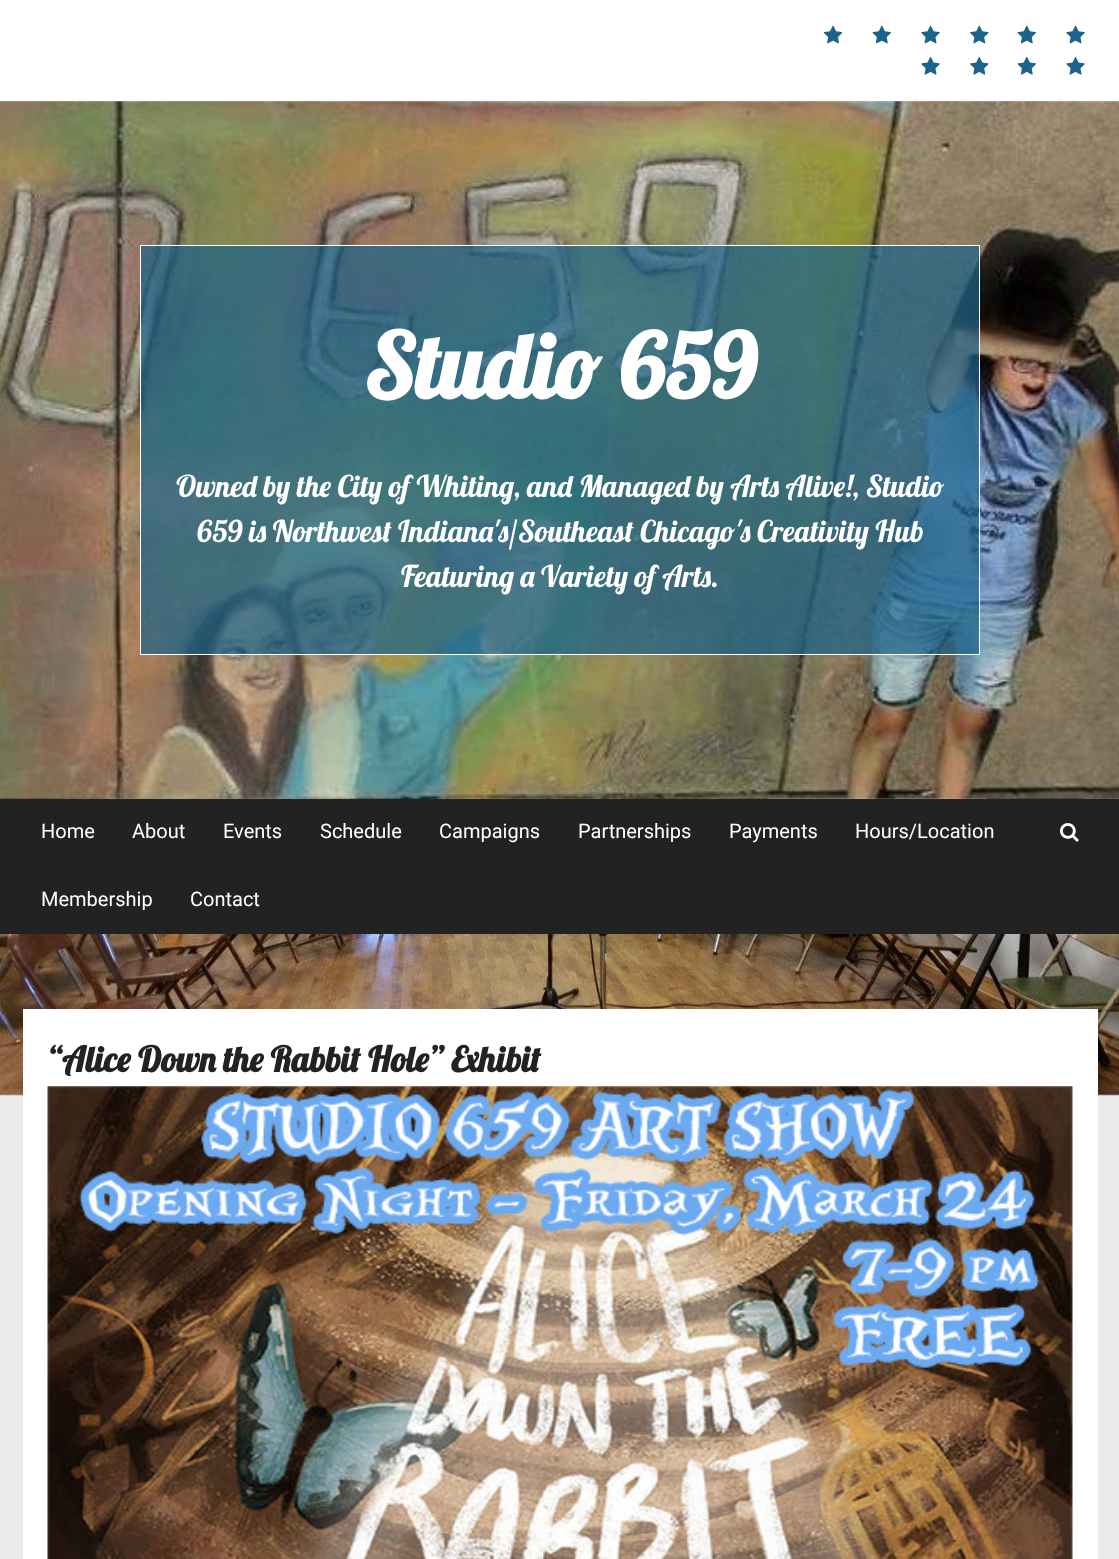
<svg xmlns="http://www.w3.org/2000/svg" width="1119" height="1559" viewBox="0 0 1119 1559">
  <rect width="100%" height="100%" fill="#eaeaea"/>
  <image x="0" y="798" width="1119" height="298" href="img1.png"/>
  <rect x="0" y="0" width="1119" height="101" fill="#ffffff"/>
  <image x="823" y="25" width="20" height="19" href="img2.png"/>
  <image x="872" y="25" width="19" height="19" href="img3.png"/>
  <image x="921" y="25" width="19" height="19" href="img4.png"/>
  <image x="970" y="25" width="19" height="19" href="img5.png"/>
  <image x="1017" y="25" width="19" height="19" href="img3.png"/>
  <image x="1066" y="25" width="19" height="19" href="img4.png"/>
  <image x="921" y="57" width="19" height="18" href="img6.png"/>
  <image x="970" y="57" width="19" height="18" href="img7.png"/>
  <image x="1017" y="57" width="19" height="18" href="img8.png"/>
  <image x="1066" y="57" width="19" height="18" href="img6.png"/>
  <image x="0" y="101" width="1119" height="698" href="img9.png"/>
  <rect x="140.5" y="245.5" width="839" height="409" fill="#1b6389" fill-opacity="0.7" stroke="#ffffff"/>
  <text x="364" y="399" font-family="Lobster" font-size="90" font-weight="bold" fill="#ffffff">Studio 659</text>
  <text x="176" y="497" font-family="Lobster" font-size="30" fill="#ffffff">Owned by the City of Whiting, and Managed by Arts Alive!, Studio</text>
  <text x="197" y="542" font-family="Lobster" font-size="30" fill="#ffffff">659 is Northwest Indiana's/Southeast Chicago's Creativity Hub</text>
  <text x="401" y="587" font-family="Lobster" font-size="30" fill="#ffffff">Featuring a Variety of Arts.</text>
  <rect x="0" y="799" width="1119" height="135" fill="#222222"/>
  <text x="41" y="838" font-family="Roboto" font-size="20" fill="#ffffff">Home</text>
  <text x="132" y="838" font-family="Roboto" font-size="20" fill="#ffffff">About</text>
  <text x="223" y="838" font-family="Roboto" font-size="20" fill="#ffffff">Events</text>
  <text x="320" y="838" font-family="Roboto" font-size="20" fill="#ffffff">Schedule</text>
  <text x="439" y="838" font-family="Roboto" font-size="20" fill="#ffffff">Campaigns</text>
  <text x="578" y="838" font-family="Roboto" font-size="20" fill="#ffffff">Partnerships</text>
  <text x="729" y="838" font-family="Roboto" font-size="20" fill="#ffffff">Payments</text>
  <text x="855" y="838" font-family="Roboto" font-size="20" fill="#ffffff">Hours/Location</text>
  <text x="41" y="906" font-family="Roboto" font-size="20" fill="#ffffff">Membership</text>
  <text x="190" y="906" font-family="Roboto" font-size="20" fill="#ffffff">Contact</text>
  <image x="1060" y="823" width="19" height="19" href="img10.png"/>
  <rect x="23" y="1009" width="1075" height="550" fill="#ffffff"/>
  <text x="47" y="1072" font-family="Lobster" font-size="35" font-weight="bold" fill="#222222">“Alice Down the Rabbit Hole” Exhibit</text>
  <image x="47" y="1086" width="1026" height="473" href="img11.png"/>
</svg>
